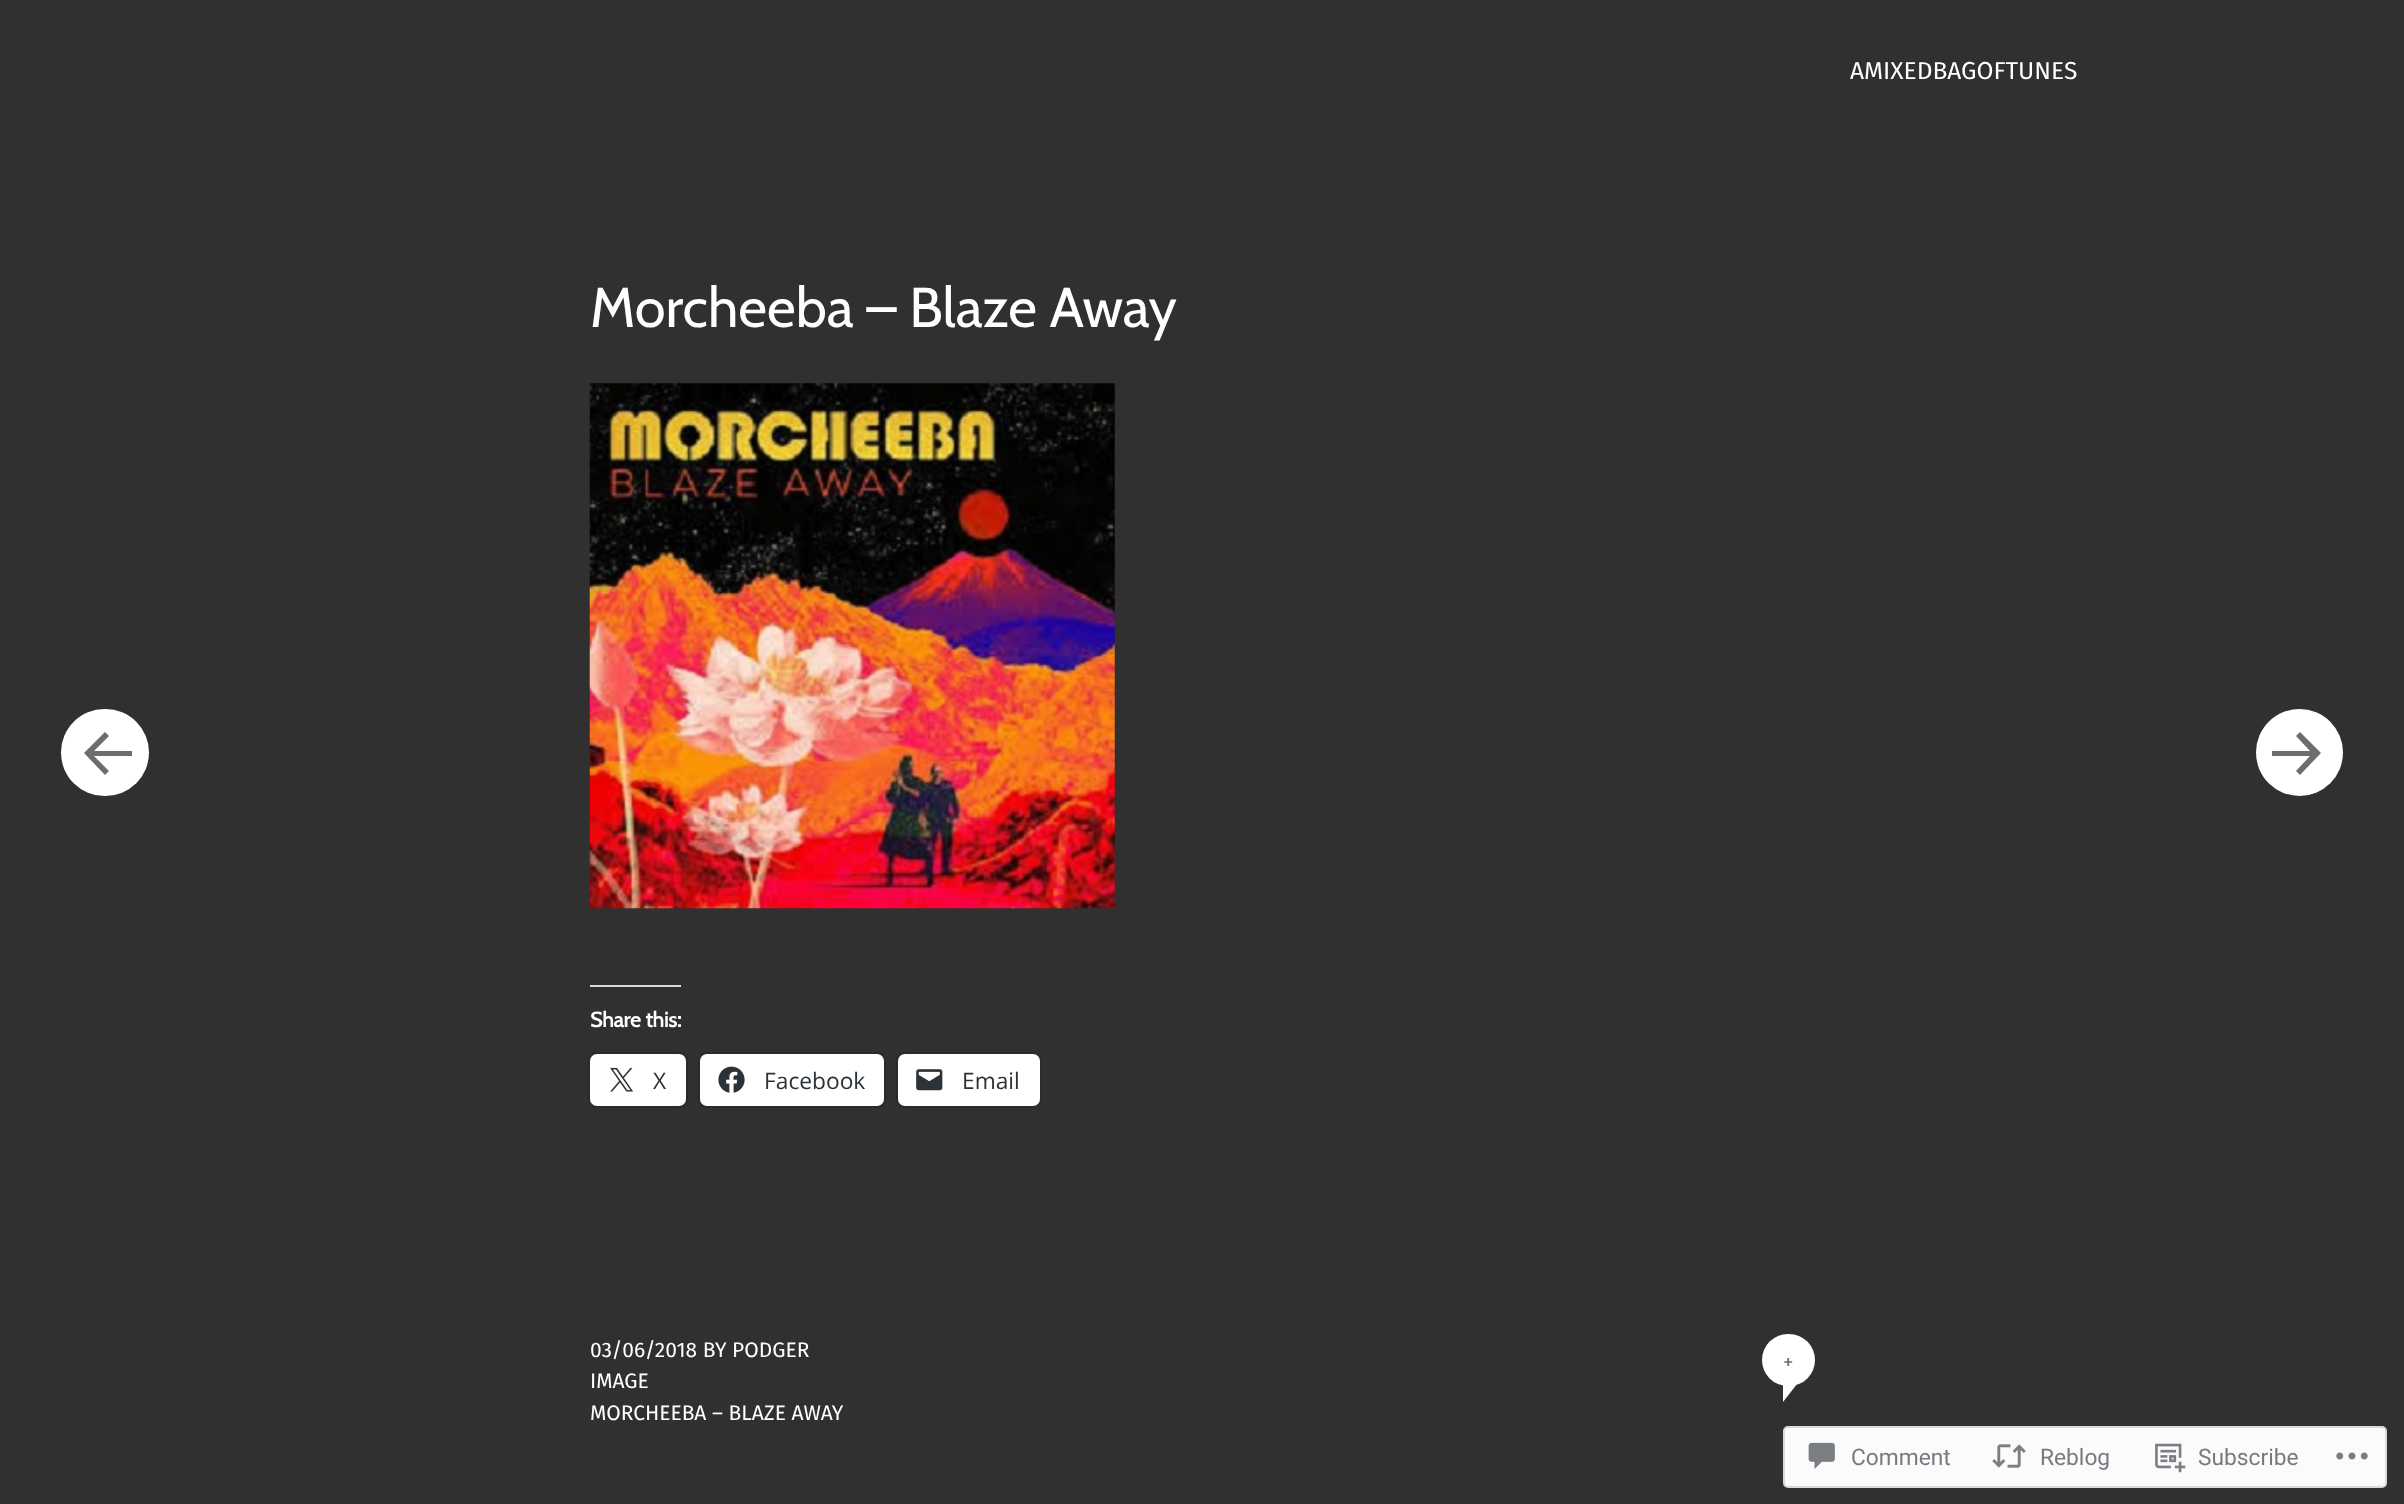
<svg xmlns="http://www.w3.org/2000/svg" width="2404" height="1504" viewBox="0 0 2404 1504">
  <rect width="100%" height="100%" fill="#303030"/>
  <text x="1850" y="79" font-family="Fira Sans" font-size="24.5" fill="#ffffff">AMIXEDBAGOFTUNES</text>
  <text x="590" y="327" font-family="Cabin" font-size="56" fill="#ffffff">Morcheeba – Blaze Away</text>
  <image x="589" y="383" width="526" height="526" href="img1.png"/>
  <rect x="590" y="985" width="91" height="2" fill="#dcdcde"/>
  <text x="590" y="1027" font-family="Cabin" font-size="21" font-weight="bold" fill="#ffffff">Share this:</text>
  <rect x="589" y="1053" width="98" height="54" rx="8" fill="none" stroke="#2a2a2a" stroke-width="2"/>
  <rect x="590" y="1054" width="96" height="52" rx="7" fill="#ffffff"/>
  <image x="610" y="1067" width="23" height="25" href="img2.png"/>
  <text x="653" y="1089" font-family="Open Sans" font-size="22.75" fill="#2c3338">X</text>
  <rect x="699" y="1053" width="186" height="54" rx="8" fill="none" stroke="#2a2a2a" stroke-width="2"/>
  <rect x="700" y="1054" width="184" height="52" rx="7" fill="#ffffff"/>
  <image x="718" y="1066" width="27" height="27" href="img3.png"/>
  <text x="764" y="1089" font-family="Open Sans" font-size="22.75" fill="#2c3338">Facebook</text>
  <rect x="897" y="1053" width="143" height="54" rx="8" fill="none" stroke="#2a2a2a" stroke-width="2"/>
  <rect x="898" y="1054" width="142" height="52" rx="7" fill="#ffffff"/>
  <image x="916" y="1069" width="27" height="22" href="img4.png"/>
  <text x="962" y="1089" font-family="Open Sans" font-size="22.75" fill="#2c3338">Email</text>
  <text x="590" y="1357" font-family="Fira Sans" font-size="21" fill="#ffffff">03/06/2018 BY PODGER</text>
  <text x="590" y="1388" font-family="Fira Sans" font-size="21" fill="#ffffff">IMAGE</text>
  <text x="590" y="1420" font-family="Fira Sans" font-size="21" fill="#ffffff">MORCHEEBA – BLAZE AWAY</text>
  <path d="M1783 1384H1797L1783 1402Z" fill="#ffffff"/>
  <rect x="1762" y="1334" width="53" height="52" rx="26" fill="#ffffff"/>
  <text x="1783" y="1369" font-family="Fira Sans" font-size="21" fill="#6d6d6d">+</text>
  <rect x="61" y="709" width="88" height="87" rx="43.5" fill="#ffffff"/>
  <path d="M84 753L105 775L109 771L94 756H132V751H94L109 736L105 732Z" fill="#6d6d6d"/>
  <circle cx="2299.5" cy="752.5" r="43.5" fill="#ffffff"/>
  <path d="M2321 753L2300 775L2296 771L2310 756H2272V751H2310L2296 736L2300 732Z" fill="#6d6d6d"/>
  <rect x="1784" y="1427" width="602" height="60" rx="4" fill="#fbfbfb" stroke="#d9d9db" stroke-width="2"/>
  <image x="1808" y="1442" width="27" height="27" href="img5.png"/>
  <text x="1851" y="1465" font-family="Roboto" font-size="22.75" fill="#777a80">Comment</text>
  <image x="1992" y="1444" width="34" height="24" href="img6.png"/>
  <text x="2040" y="1465" font-family="Roboto" font-size="22.75" fill="#777a80">Reblog</text>
  <image x="2155" y="1443" width="31" height="30" href="img7.png"/>
  <text x="2198" y="1465" font-family="Roboto" font-size="22.75" fill="#777a80">Subscribe</text>
  <image x="2336" y="1452" width="32" height="8" href="img8.png"/>
</svg>
